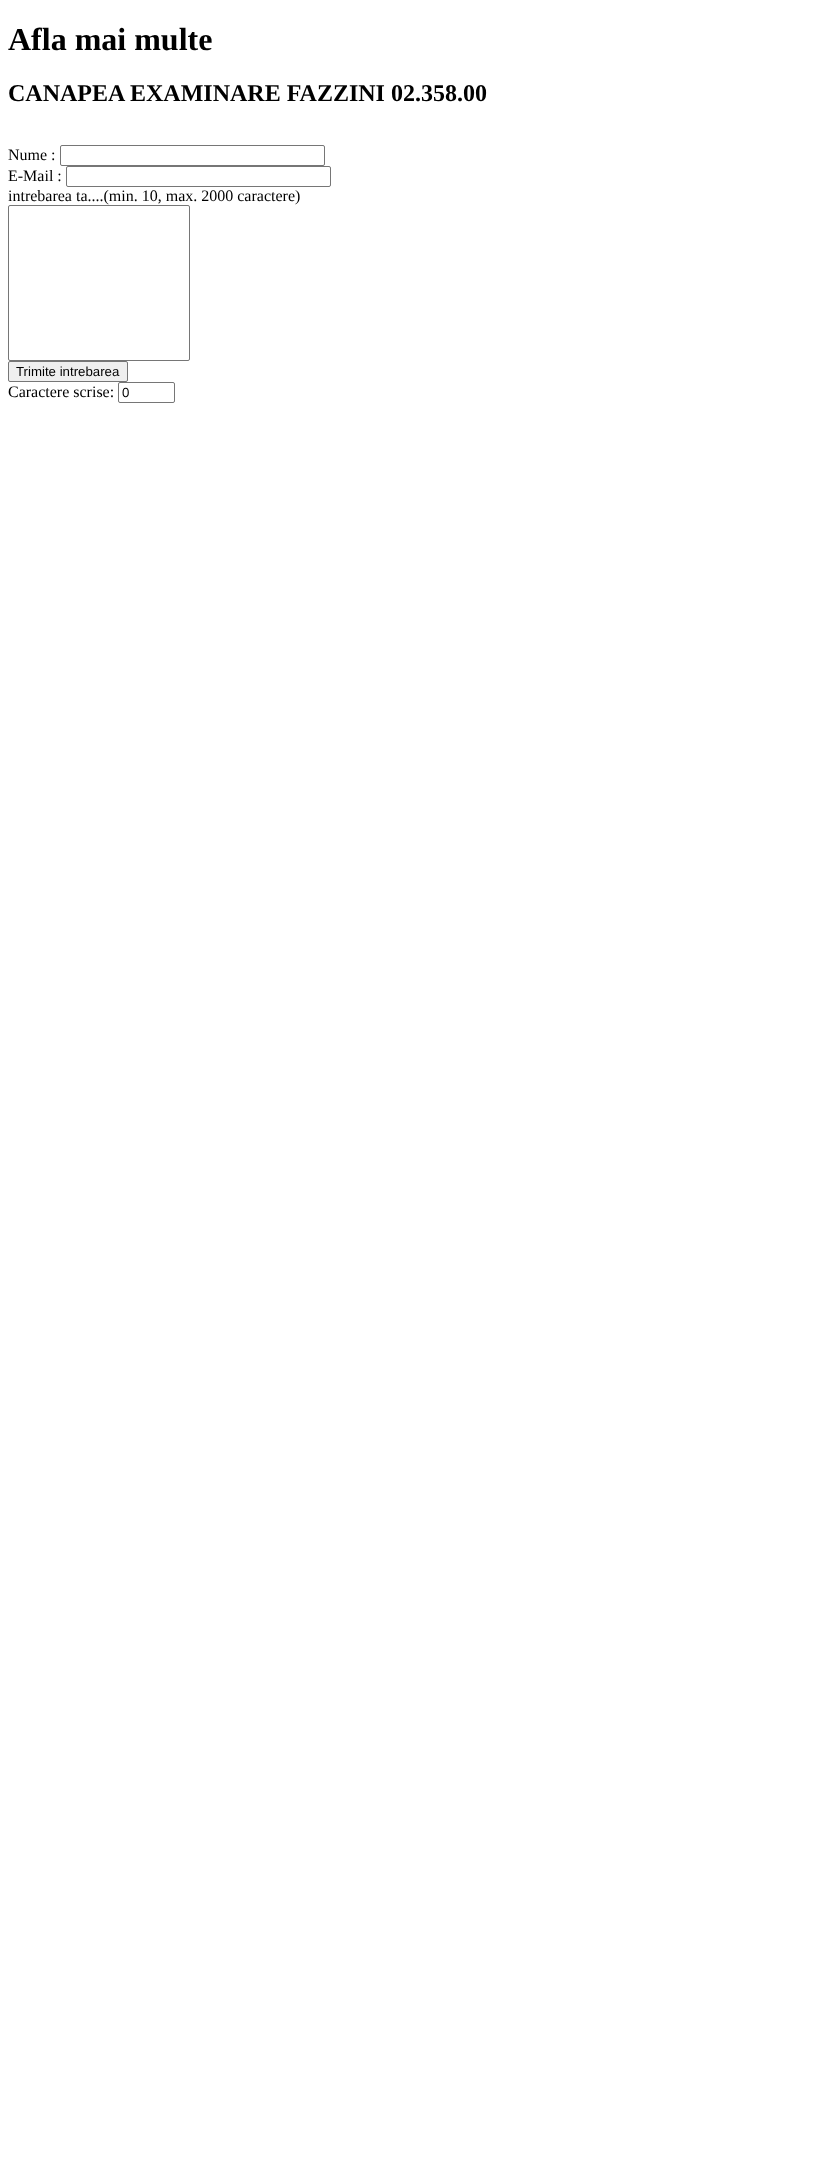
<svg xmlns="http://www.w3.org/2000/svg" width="816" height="2172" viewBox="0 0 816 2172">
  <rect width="100%" height="100%" fill="#ffffff"/>
  <text x="8" y="50" font-family="Liberation Serif" font-size="32" font-weight="bold" fill="#000000">Afla mai multe</text>
  <text x="8" y="101" font-family="Liberation Serif" font-size="24" font-weight="bold" fill="#000000">CANAPEA EXAMINARE FAZZINI 02.358.00</text>
  <text x="8" y="160" font-family="Liberation Serif" font-size="16" fill="#000000">Nume :</text>
  <rect x="60.5" y="145.5" width="264" height="20" rx="1.5" fill="none" stroke="#767676"/>
  <text x="8" y="181" font-family="Liberation Serif" font-size="16" fill="#000000">E-Mail :</text>
  <rect x="66.5" y="166.5" width="264" height="20" rx="1.5" fill="none" stroke="#767676"/>
  <text x="8" y="201" font-family="Liberation Serif" font-size="16" fill="#000000">intrebarea ta....(min. 10, max. 2000 caractere)</text>
  <rect x="8.5" y="205.5" width="181" height="155" rx="1.5" fill="none" stroke="#767676"/>
  <rect x="8.5" y="361.5" width="119" height="20" rx="1.5" fill="#efefef" stroke="#767676"/>
  <text x="16" y="376" font-family="Liberation Sans" font-size="13.25" fill="#000000">Trimite intrebarea</text>
  <text x="8" y="397" font-family="Liberation Serif" font-size="16" fill="#000000">Caractere scrise:</text>
  <rect x="118.5" y="382.5" width="56" height="20" rx="1.5" fill="none" stroke="#767676"/>
  <text x="122" y="397" font-family="Liberation Sans" font-size="13.25" fill="#000000">0</text>
</svg>
